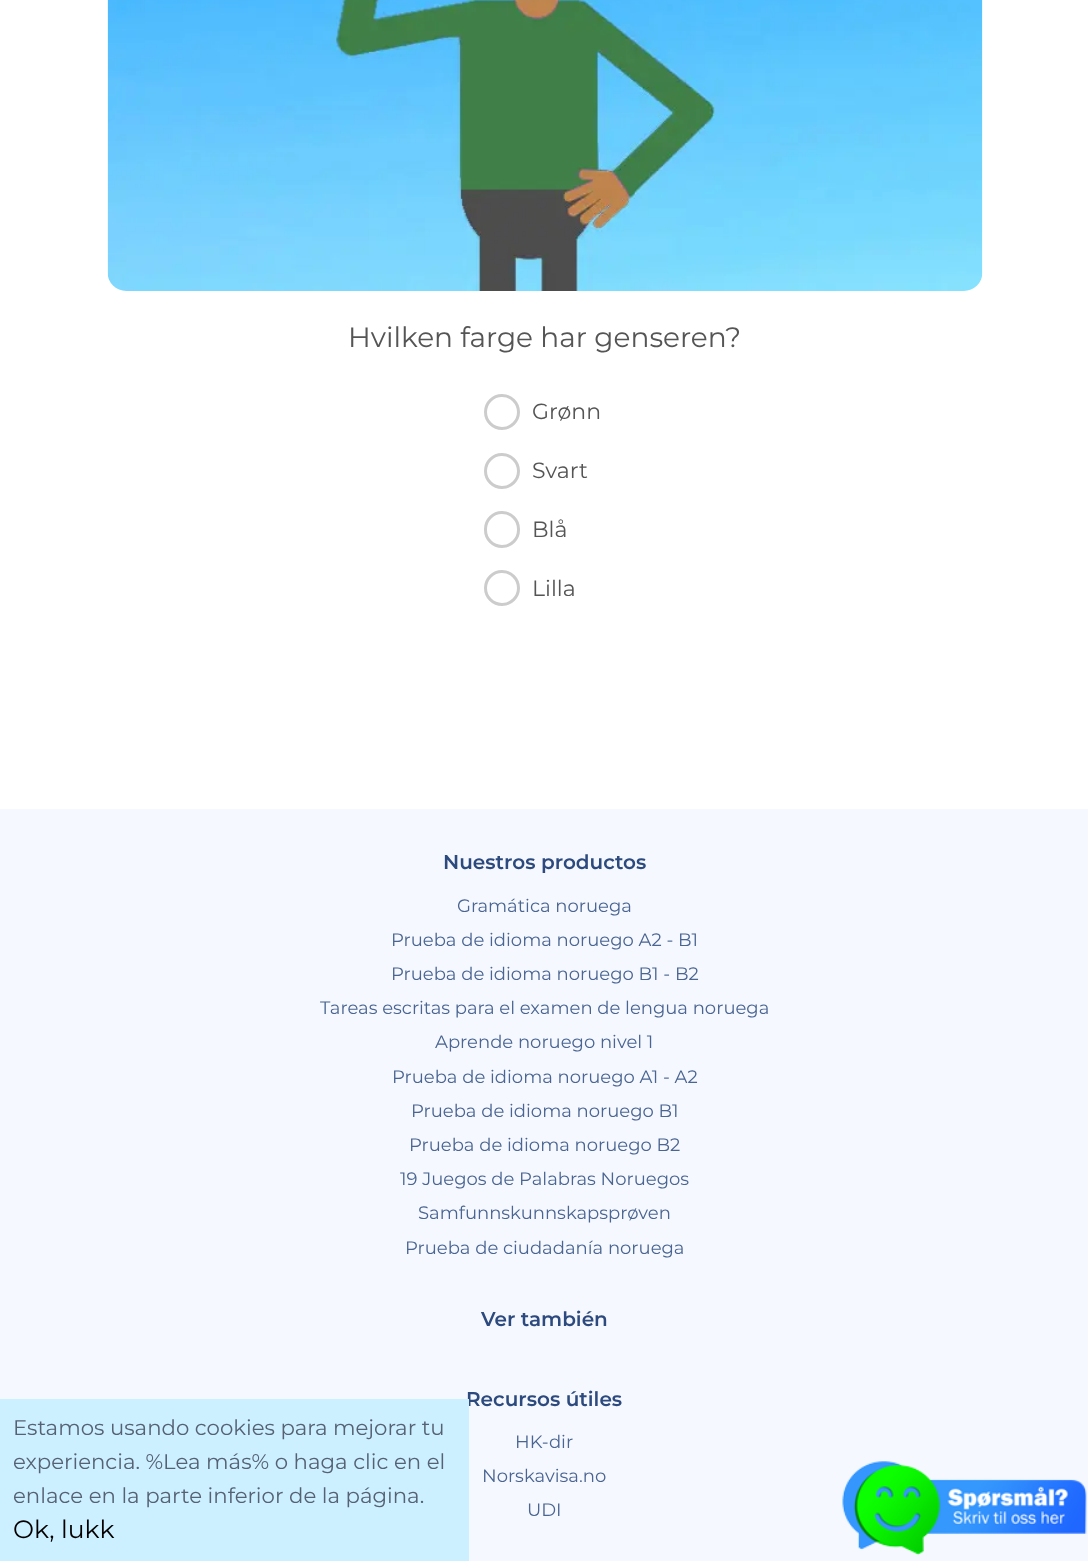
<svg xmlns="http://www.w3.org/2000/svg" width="1088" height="1561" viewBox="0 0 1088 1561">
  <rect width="100%" height="100%" fill="#f5f8ff"/>
  <rect x="0" y="0" width="1088" height="809" fill="#ffffff"/>
  <image x="107" y="0" width="876" height="291" href="img1.png"/>
  <text x="348" y="347" font-family="Montserrat" font-size="28" fill="#555555">Hvilken farge har genseren?</text>
  <circle cx="502" cy="412" r="16.5" fill="none" stroke="#cccccc" stroke-width="3"/>
  <text x="532" y="419" font-family="Montserrat" font-size="22" fill="#555555">Grønn</text>
  <circle cx="502" cy="471" r="16.5" fill="none" stroke="#cccccc" stroke-width="3"/>
  <text x="532" y="478" font-family="Montserrat" font-size="22" fill="#555555">Svart</text>
  <rect x="485.5" y="512.5" width="33" height="34" rx="16.5" fill="none" stroke="#cccccc" stroke-width="3"/>
  <text x="532" y="537" font-family="Montserrat" font-size="22" fill="#555555">Blå</text>
  <circle cx="502" cy="588" r="16.5" fill="none" stroke="#cccccc" stroke-width="3"/>
  <text x="532" y="596" font-family="Montserrat" font-size="22" fill="#555555">Lilla</text>
  <text x="466" y="1406" font-family="Montserrat" font-size="20" font-weight="600" fill="#2c4a7d">Recursos útiles</text>
  <rect x="0" y="1399" width="469" height="162" fill="#ccf0ff"/>
  <text x="13" y="1435" font-family="Montserrat" font-size="21.25" fill="#566274">Estamos usando cookies para mejorar tu</text>
  <text x="13" y="1469" font-family="Montserrat" font-size="21.25" fill="#566274">experiencia. %Lea más% o haga clic en el</text>
  <text x="13" y="1503" font-family="Montserrat" font-size="21.25" fill="#566274">enlace en la parte inferior de la página.</text>
  <text x="13" y="1538" font-family="Montserrat" font-size="25" fill="#000000">Ok, lukk</text>
  <text x="443" y="869" font-family="Montserrat" font-size="20" font-weight="600" fill="#2c4a7d">Nuestros productos</text>
  <text x="457" y="912" font-family="Montserrat" font-size="18" fill="#4a6592">Gramática noruega</text>
  <text x="391" y="946" font-family="Montserrat" font-size="18" fill="#4a6592">Prueba de idioma noruego A2 - B1</text>
  <text x="391" y="980" font-family="Montserrat" font-size="18" fill="#4a6592">Prueba de idioma noruego B1 - B2</text>
  <text x="320" y="1014" font-family="Montserrat" font-size="18" fill="#4a6592">Tareas escritas para el examen de lengua noruega</text>
  <text x="435" y="1048" font-family="Montserrat" font-size="18" fill="#4a6592">Aprende noruego nivel 1</text>
  <text x="392" y="1083" font-family="Montserrat" font-size="18" fill="#4a6592">Prueba de idioma noruego A1 - A2</text>
  <text x="411" y="1117" font-family="Montserrat" font-size="18" fill="#4a6592">Prueba de idioma noruego B1</text>
  <text x="409" y="1151" font-family="Montserrat" font-size="18" fill="#4a6592">Prueba de idioma noruego B2</text>
  <text x="400" y="1185" font-family="Montserrat" font-size="18" fill="#4a6592">19 Juegos de Palabras Noruegos</text>
  <text x="418" y="1219" font-family="Montserrat" font-size="18" fill="#4a6592">Samfunnskunnskapsprøven</text>
  <text x="405" y="1254" font-family="Montserrat" font-size="18" fill="#4a6592">Prueba de ciudadanía noruega</text>
  <text x="481" y="1326" font-family="Montserrat" font-size="20" font-weight="600" fill="#2c4a7d">Ver también</text>
  <text x="515" y="1448" font-family="Montserrat" font-size="18" fill="#4a6592">HK-dir</text>
  <text x="482" y="1482" font-family="Montserrat" font-size="18" fill="#4a6592">Norskavisa.no</text>
  <text x="527" y="1516" font-family="Montserrat" font-size="18" fill="#4a6592">UDI</text>
  <image x="842" y="1461" width="245" height="95" href="img2.png"/>
</svg>
